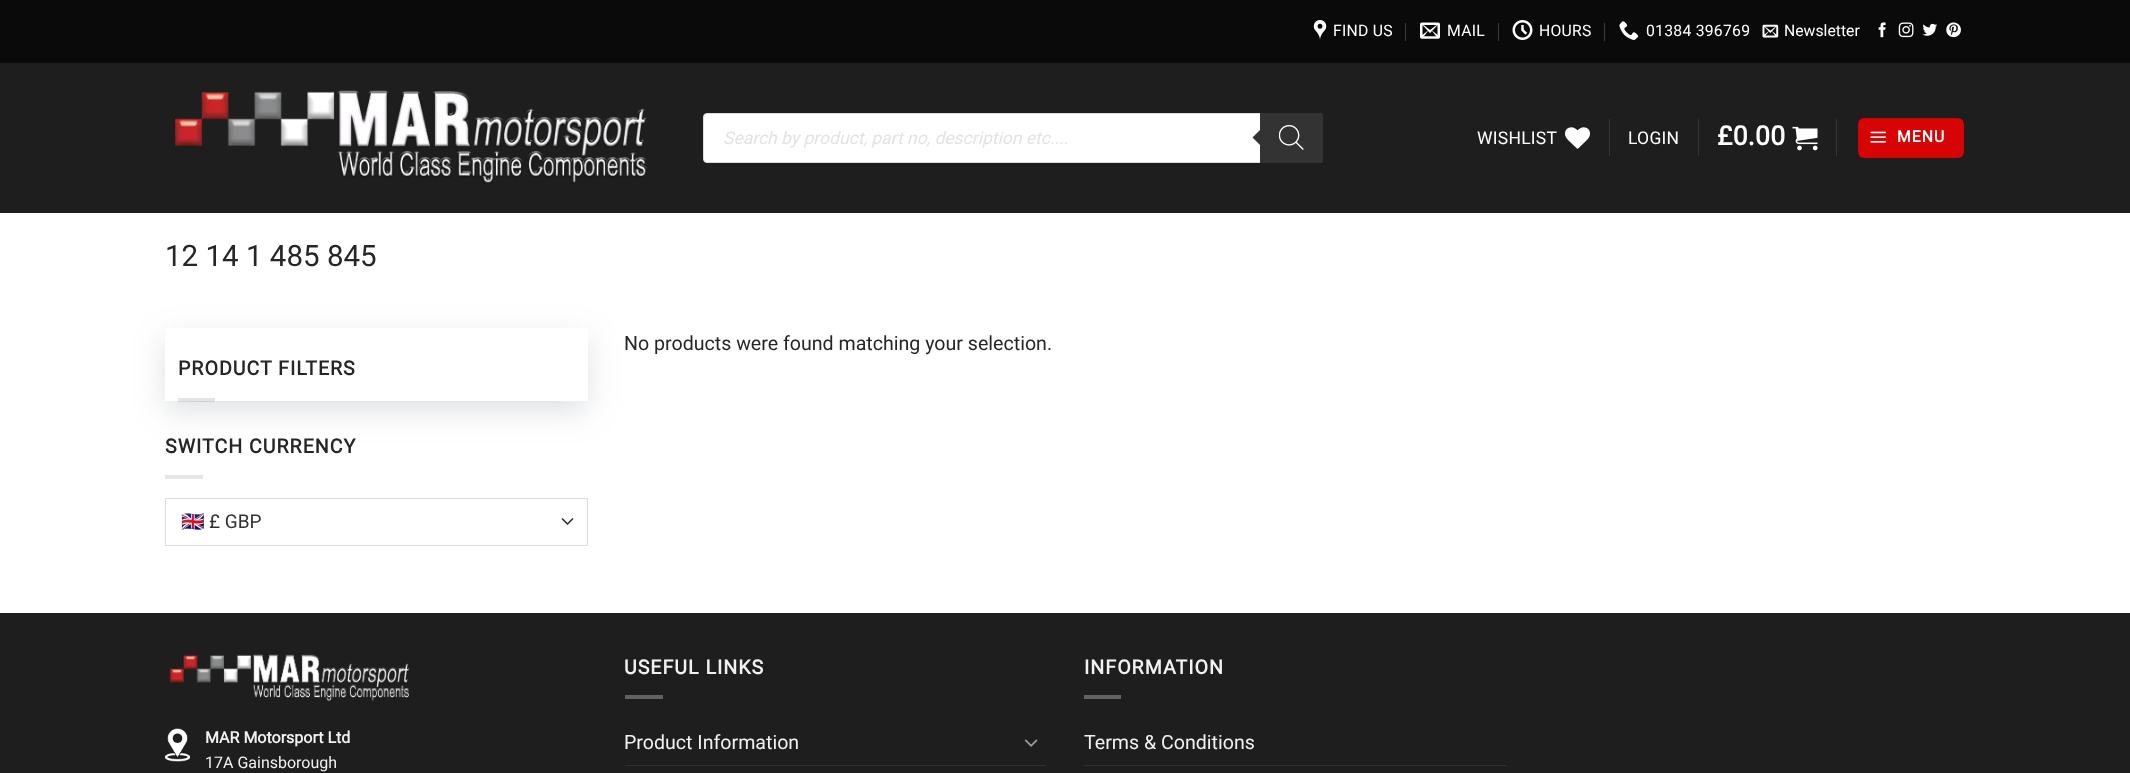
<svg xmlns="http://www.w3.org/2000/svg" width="2130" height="773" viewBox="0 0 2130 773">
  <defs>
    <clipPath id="clip1"><path d="M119 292H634V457H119ZM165 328H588V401H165Z" clip-rule="evenodd"/></clipPath>
    <filter id="blur1" x="-50%" y="-200%" width="200%" height="500%"><feGaussianBlur stdDeviation="15"/></filter>
  </defs>
  <rect width="100%" height="100%" fill="#ffffff"/>
  <rect x="0" y="0" width="2130" height="63" fill="#0a0a0a"/>
  <image x="1313" y="20" width="14" height="20" href="img1.png"/>
  <text x="1333" y="36" font-family="Roboto" font-size="15.75" letter-spacing="0.25" fill="#ffffff">FIND US</text>
  <rect x="1405" y="23" width="1" height="18" fill="#3b3b3b"/>
  <image x="1420" y="22" width="20" height="17" href="img2.png"/>
  <text x="1447" y="36" font-family="Roboto" font-size="15.75" letter-spacing="0.25" fill="#ffffff">MAIL</text>
  <rect x="1498" y="23" width="1" height="18" fill="#3b3b3b"/>
  <image x="1512" y="20" width="21" height="20" href="img3.png"/>
  <text x="1539" y="36" font-family="Roboto" font-size="15.75" letter-spacing="0.25" fill="#ffffff">HOURS</text>
  <rect x="1604" y="23" width="1" height="18" fill="#3b3b3b"/>
  <image x="1619" y="21" width="20" height="19" href="img4.png"/>
  <text x="1646" y="36" font-family="Roboto" font-size="15.75" letter-spacing="0.25" fill="#ffffff">01384 396769</text>
  <image x="1762" y="24" width="17" height="14" href="img5.png"/>
  <text x="1784" y="36" font-family="Roboto" font-size="15.75" fill="#ffffff">Newsletter</text>
  <image x="1878" y="22" width="8" height="16" href="img6.png"/>
  <image x="1898" y="22" width="16" height="16" href="img7.png"/>
  <image x="1922" y="23" width="15" height="13" href="img8.png"/>
  <image x="1946" y="22" width="15" height="16" href="img9.png"/>
  <rect x="0" y="63" width="2130" height="150" fill="#1e1e1e"/>
  <image x="174" y="90" width="474" height="94" href="img10.png"/>
  <rect x="703.5" y="113.5" width="619" height="49" rx="3.5" fill="#ffffff" stroke="#dddddd"/>
  <text x="723" y="144" font-family="Roboto" font-size="17.5" font-style="italic" fill="#e3e3e3">Search by product, part no, description etc....</text>
  <path d="M1260 113H1320.5C1322 113 1323 114 1323 115.5V160.5C1323 162 1322 163 1320.5 163H1260Z" fill="#333333"/>
  <path d="M1262.5 127.5V147.5L1252.5 137.5Z" fill="#333333"/>
  <image x="1279" y="125" width="25" height="25" href="img11.png"/>
  <text x="1477" y="144" font-family="Roboto" font-size="17.5" letter-spacing="0.25" fill="#ffffff">WISHLIST</text>
  <image x="1565" y="127" width="25" height="22" href="img12.png"/>
  <rect x="1609" y="119" width="1" height="37" fill="#353535"/>
  <text x="1628" y="144" font-family="Roboto" font-size="17.5" letter-spacing="0.25" fill="#ffffff">LOGIN</text>
  <rect x="1698" y="119" width="1" height="37" fill="#353535"/>
  <text x="1717" y="145" font-family="Roboto" font-size="26.5" font-weight="bold" letter-spacing="0.25" fill="#ffffff">£0.00</text>
  <image x="1792" y="126" width="26" height="25" href="img13.png"/>
  <rect x="1836" y="119" width="1" height="37" fill="#353535"/>
  <rect x="1858" y="118" width="106" height="40" rx="6" fill="#d60404"/>
  <rect x="1858.5" y="118.5" width="105" height="39" fill="none" stroke="#000000" stroke-opacity="0.05"/>
  <image x="1870" y="131" width="16" height="12" href="img14.png"/>
  <text x="1897" y="142" font-family="Roboto" font-size="15.75" font-weight="bold" letter-spacing="1" fill="#ffffff">MENU</text>
  <text x="165" y="266" font-family="Roboto" font-size="29.5" fill="#262626">12 14 1 485 845</text>
  <g clip-path="url(#clip1)">
    <rect x="165" y="338" width="423" height="73" fill="#959da5" fill-opacity="0.3" filter="url(#blur1)"/>
  </g>
  <text x="624" y="350" font-family="Roboto" font-size="19.6" fill="#262626">No products were found matching your selection.</text>
  <text x="178" y="375" font-family="Roboto" font-size="19.6" font-weight="bold" letter-spacing="1" fill="#262626">PRODUCT FILTERS</text>
  <rect x="178" y="398" width="37" height="4" fill="#000000" fill-opacity="0.1"/>
  <text x="165" y="453" font-family="Roboto" font-size="19.6" font-weight="bold" letter-spacing="1" fill="#262626">SWITCH CURRENCY</text>
  <rect x="165" y="475" width="38" height="4" fill="#e6e6e6"/>
  <path d="M562.5 519L567.5 524L572.5 519" fill="none" stroke="#333333" stroke-width="1.7" stroke-linecap="round" stroke-linejoin="round"/>
  <rect x="165.5" y="498.5" width="422" height="47" fill="none" stroke="#dddddd"/>
  <text x="181" y="528" font-family="Noto Color Emoji" font-size="19" fill="#333333">🇬🇧</text>
  <text x="209" y="528" font-family="Roboto" font-size="19" fill="#333333">£ GBP</text>
  <rect x="0" y="613" width="2130" height="160" fill="#1e1e1e"/>
  <image x="169" y="654" width="241" height="47" href="img15.png"/>
  <image x="165" y="728" width="25" height="34" href="img16.png"/>
  <text x="205" y="743" font-family="Roboto" font-size="16" font-weight="bold" fill="#f1f1f1">MAR Motorsport Ltd</text>
  <text x="205" y="768" font-family="Roboto" font-size="16" fill="#f1f1f1">17A Gainsborough</text>
  <text x="624" y="674" font-family="Roboto" font-size="19.6" font-weight="bold" letter-spacing="1" fill="#f1f1f1">USEFUL LINKS</text>
  <rect x="625" y="695" width="38" height="4" fill="#626262"/>
  <text x="624" y="749" font-family="Roboto" font-size="19.6" fill="#f1f1f1">Product Information</text>
  <image x="1024" y="739" width="14" height="8" href="img17.png"/>
  <rect x="625" y="765" width="421" height="1" fill="#303030"/>
  <text x="1084" y="674" font-family="Roboto" font-size="19.6" font-weight="bold" letter-spacing="1" fill="#f1f1f1">INFORMATION</text>
  <rect x="1084" y="695" width="37" height="4" fill="#626262"/>
  <text x="1084" y="749" font-family="Roboto" font-size="19.6" fill="#f1f1f1">Terms &amp; Conditions</text>
  <rect x="1084" y="765" width="422" height="1" fill="#303030"/>
</svg>
